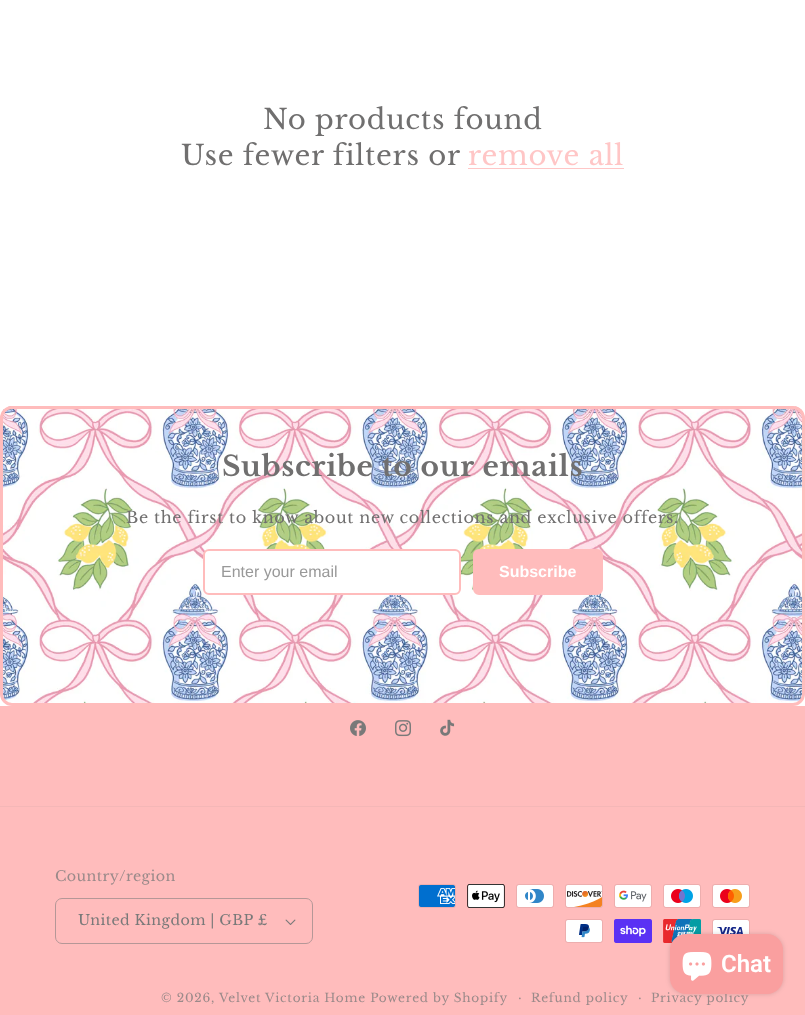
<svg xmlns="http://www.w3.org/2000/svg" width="805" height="1015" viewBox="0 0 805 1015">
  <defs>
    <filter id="blur1" x="-50%" y="-200%" width="200%" height="500%"><feGaussianBlur stdDeviation="2.5"/></filter>
  </defs>
  <rect width="100%" height="100%" fill="#ffffff"/>
  <text x="263" y="129" font-family="Libre Baskerville" font-size="27.6" letter-spacing="0.7" fill="#706f6f">No products found</text>
  <text x="181" y="165" font-family="Libre Baskerville" font-size="27.6" letter-spacing="0.7" fill="#706f6f">Use fewer filters or</text>
  <text x="468" y="165" font-family="Libre Baskerville" font-size="27.6" letter-spacing="0.7" fill="#ffc6c6">remove all</text>
  <rect x="468" y="168" width="156" height="1" fill="#ffc6c6"/>
  <image x="3" y="406" width="799" height="300" href="img1.png"/>
  <rect x="1.5" y="407.5" width="802" height="297" rx="10.5" fill="none" stroke="#ffbcbc" stroke-width="3"/>
  <text x="222" y="476" font-family="Libre Baskerville" font-size="28" font-weight="bold" letter-spacing="0.7" fill="#706f6f">Subscribe to our emails</text>
  <text x="126" y="523" font-family="Libre Baskerville" font-size="16" letter-spacing="0.65" fill="#706f6f">Be the first to know about new collections and exclusive offers.</text>
  <rect x="204" y="550" width="256" height="44" rx="5" fill="#ffffff" stroke="#ffbcbc" stroke-width="2"/>
  <text x="221" y="577" font-family="Liberation Sans" font-size="16" fill="#999999">Enter your email</text>
  <rect x="474" y="550" width="128" height="44" rx="5" fill="#ffbcbc" stroke="#ffbcbc" stroke-width="2"/>
  <text x="499" y="577" font-family="Liberation Sans" font-size="16" font-weight="bold" fill="#ffffff">Subscribe</text>
  <rect x="0" y="706" width="805" height="309" fill="#ffbcbc"/>
  <image x="350" y="720" width="16" height="16" href="img2.png"/>
  <image x="395" y="720" width="16" height="17" href="img3.png"/>
  <image x="440" y="719" width="15" height="17" href="img4.png"/>
  <rect x="0" y="806" width="805" height="1" fill="#f4b7b7"/>
  <text x="55" y="881" font-family="Libre Baskerville" font-size="14.25" letter-spacing="0.4" fill="#9b8a8a">Country/region</text>
  <image x="285" y="919" width="11" height="6" href="img5.png"/>
  <rect x="55.5" y="898.5" width="257" height="45" rx="6.5" fill="none" stroke="#b59797"/>
  <text x="78" y="925" font-family="Libre Baskerville" font-size="14.25" letter-spacing="0.4" fill="#797979">United Kingdom | GBP £</text>
  <image x="418" y="884" width="38" height="24" href="img6.png"/>
  <image x="467" y="884" width="38" height="24" href="img7.png"/>
  <image x="516" y="884" width="38" height="24" href="img8.png"/>
  <image x="565" y="884" width="38" height="24" href="img9.png"/>
  <image x="614" y="884" width="38" height="24" href="img10.png"/>
  <image x="663" y="884" width="38" height="24" href="img11.png"/>
  <image x="712" y="884" width="38" height="24" href="img12.png"/>
  <image x="565" y="919" width="38" height="24" href="img13.png"/>
  <image x="614" y="919" width="38" height="24" href="img14.png"/>
  <image x="663" y="919" width="38" height="24" href="img15.png"/>
  <image x="712" y="919" width="38" height="15" href="img16.png"/>
  <text x="161" y="1002" font-family="Libre Baskerville" font-size="12.1" letter-spacing="0.75" fill="#9b8a8a">© 2026,</text>
  <text x="219" y="1002" font-family="Libre Baskerville" font-size="12.1" letter-spacing="0.75" fill="#9b8a8a">Velvet Victoria Home Powered by Shopify</text>
  <text x="518" y="1002" font-family="Libre Baskerville" font-size="13" letter-spacing="0.75" fill="#9b8a8a">·</text>
  <text x="531" y="1002" font-family="Libre Baskerville" font-size="12.1" letter-spacing="0.75" fill="#9b8a8a">Refund policy</text>
  <text x="638" y="1002" font-family="Libre Baskerville" font-size="13" letter-spacing="0.75" fill="#9b8a8a">·</text>
  <text x="651" y="1002" font-family="Libre Baskerville" font-size="12.1" letter-spacing="0.75" fill="#9b8a8a">Privacy policy</text>
  <rect x="670" y="934" width="113" height="60" rx="16" fill="#000000" fill-opacity="0.15" filter="url(#blur1)"/>
  <rect x="670" y="934" width="113" height="60" rx="16" fill="#fa9f9f"/>
  <image x="682" y="952" width="30" height="29" href="img17.png"/>
  <text x="721" y="972" font-family="Roboto" font-size="24" font-weight="600" fill="#ffffff">Chat</text>
</svg>
